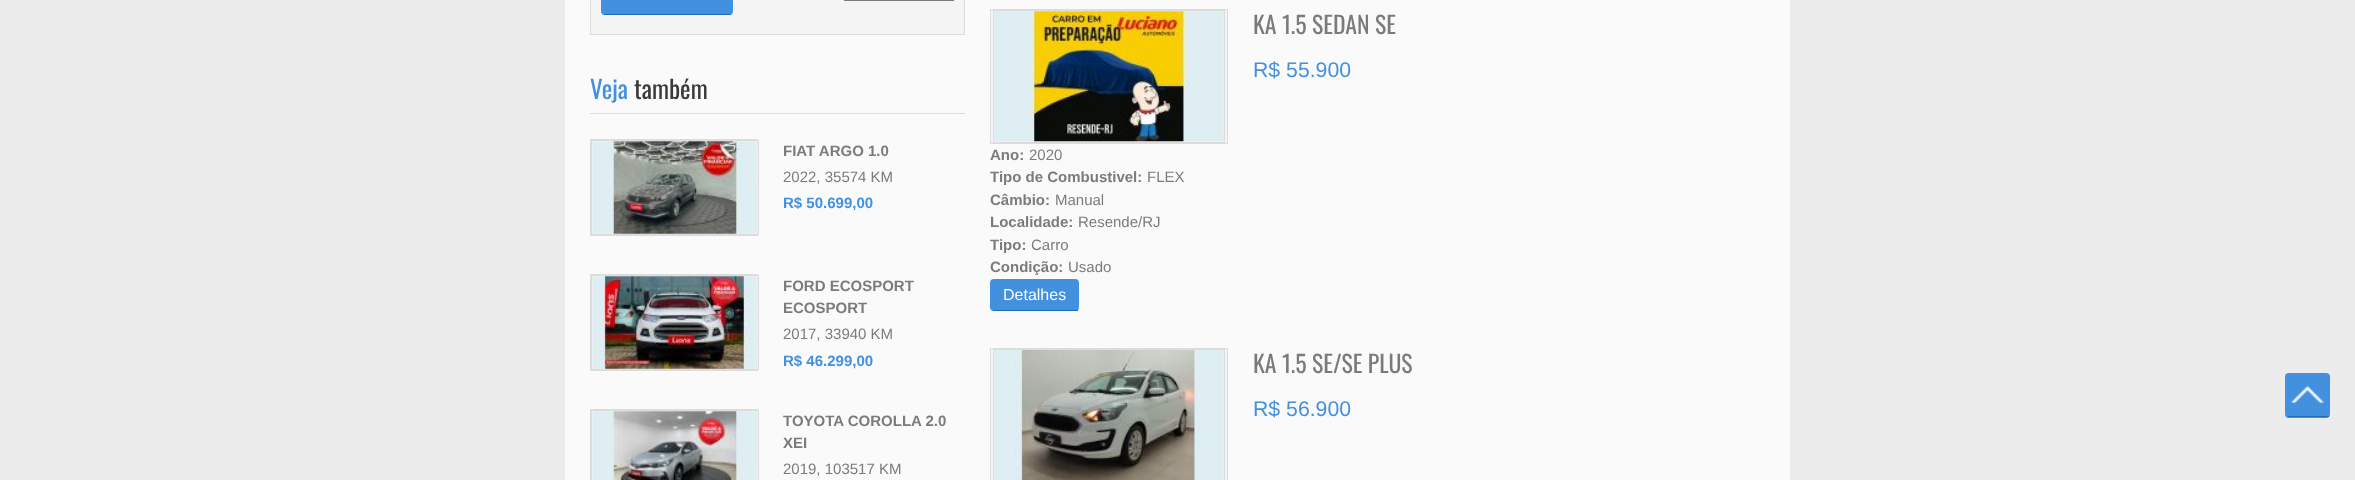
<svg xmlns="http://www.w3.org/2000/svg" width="2355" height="480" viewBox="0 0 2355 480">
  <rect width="100%" height="100%" fill="#ececec"/>
  <rect x="565" y="0" width="1225" height="480" fill="#fbfafa"/>
  <rect x="590.5" y="-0.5" width="374" height="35" fill="#f4f4f4" stroke="#dddcdc"/>
  <rect x="601" y="-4" width="132" height="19" rx="4" fill="#4390df"/>
  <rect x="604" y="14" width="127" height="1" fill="#1f6bb8"/>
  <rect x="844" y="0" width="110" height="1" fill="#7b7b7b"/>
  <rect x="590" y="113" width="375" height="1" fill="#dddcdc"/>
  <text x="590" y="99" font-family="Oswald" font-size="25" fill="#4390df">Veja</text>
  <text x="634" y="99" font-family="Oswald" font-size="25" fill="#3a3a3a">também</text>
  <rect x="590.5" y="139.5" width="167" height="96" fill="none" stroke="#dddcdc"/>
  <rect x="591.5" y="140.5" width="167" height="94" fill="#f4f4f4" stroke="#dddcdc"/>
  <image x="592" y="141" width="166" height="93" href="img1.png"/>
  <text x="783" y="156" font-family="Liberation Sans" font-size="15" font-weight="bold" fill="#7b7b7b">FIAT ARGO 1.0</text>
  <text x="783" y="182" font-family="Liberation Sans" font-size="15" fill="#7b7b7b">2022, 35574 KM</text>
  <text x="783" y="208" font-family="Liberation Sans" font-size="15" font-weight="bold" fill="#4390df">R$ 50.699,00</text>
  <rect x="590.5" y="274.5" width="167" height="96" fill="none" stroke="#dddcdc"/>
  <rect x="591.5" y="275.5" width="167" height="94" fill="#f4f4f4" stroke="#dddcdc"/>
  <image x="592" y="276" width="166" height="93" href="img2.png"/>
  <text x="783" y="291" font-family="Liberation Sans" font-size="15" font-weight="bold" fill="#7b7b7b">FORD ECOSPORT</text>
  <text x="783" y="313" font-family="Liberation Sans" font-size="15" font-weight="bold" fill="#7b7b7b">ECOSPORT</text>
  <text x="783" y="339" font-family="Liberation Sans" font-size="15" fill="#7b7b7b">2017, 33940 KM</text>
  <text x="783" y="366" font-family="Liberation Sans" font-size="15" font-weight="bold" fill="#4390df">R$ 46.299,00</text>
  <rect x="590.5" y="409.5" width="167" height="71" fill="none" stroke="#dddcdc"/>
  <rect x="591.5" y="410.5" width="167" height="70" fill="#f4f4f4" stroke="#dddcdc"/>
  <image x="592" y="411" width="166" height="69" href="img3.png"/>
  <text x="783" y="426" font-family="Liberation Sans" font-size="15" font-weight="bold" fill="#7b7b7b">TOYOTA COROLLA 2.0</text>
  <text x="783" y="448" font-family="Liberation Sans" font-size="15" font-weight="bold" fill="#7b7b7b">XEI</text>
  <text x="783" y="474" font-family="Liberation Sans" font-size="15" fill="#7b7b7b">2019, 103517 KM</text>
  <rect x="990.5" y="9.5" width="237" height="134" fill="#f4f4f4" stroke="#dddcdc"/>
  <rect x="993.5" y="10.5" width="231" height="132" fill="none" stroke="#dddcdc"/>
  <image x="993" y="11" width="231" height="131" href="img4.png"/>
  <text x="1253" y="34" font-family="Oswald" font-size="23.75" fill="#7b7b7b">KA 1.5 SEDAN SE</text>
  <text x="1253" y="77" font-family="Liberation Sans" font-size="21.25" fill="#4390df">R$ 55.900</text>
  <text x="990" y="160" font-family="Liberation Sans" font-size="15" font-weight="bold" fill="#7b7b7b">Ano:</text>
  <text x="1029" y="160" font-family="Liberation Sans" font-size="15" fill="#7b7b7b">2020</text>
  <text x="990" y="182" font-family="Liberation Sans" font-size="15" font-weight="bold" fill="#7b7b7b">Tipo de Combustivel:</text>
  <text x="1147" y="182" font-family="Liberation Sans" font-size="15" fill="#7b7b7b">FLEX</text>
  <text x="990" y="205" font-family="Liberation Sans" font-size="15" font-weight="bold" fill="#7b7b7b">Câmbio:</text>
  <text x="1055" y="205" font-family="Liberation Sans" font-size="15" fill="#7b7b7b">Manual</text>
  <text x="990" y="227" font-family="Liberation Sans" font-size="15" font-weight="bold" fill="#7b7b7b">Localidade:</text>
  <text x="1078" y="227" font-family="Liberation Sans" font-size="15" fill="#7b7b7b">Resende/RJ</text>
  <text x="990" y="250" font-family="Liberation Sans" font-size="15" font-weight="bold" fill="#7b7b7b">Tipo:</text>
  <text x="1031" y="250" font-family="Liberation Sans" font-size="15" fill="#7b7b7b">Carro</text>
  <text x="990" y="272" font-family="Liberation Sans" font-size="15" font-weight="bold" fill="#7b7b7b">Condição:</text>
  <text x="1068" y="272" font-family="Liberation Sans" font-size="15" fill="#7b7b7b">Usado</text>
  <rect x="990" y="279" width="89" height="32" rx="4" fill="#4390df"/>
  <rect x="993" y="310" width="85" height="1" fill="#1f6bb8"/>
  <text x="1003" y="300" font-family="Liberation Sans" font-size="16" fill="#fbfafa">Detalhes</text>
  <rect x="990.5" y="348.5" width="237" height="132" fill="#f4f4f4" stroke="#dddcdc"/>
  <rect x="993.5" y="349.5" width="231" height="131" fill="none" stroke="#dddcdc"/>
  <image x="993" y="350" width="231" height="130" href="img5.png"/>
  <text x="1253" y="373" font-family="Oswald" font-size="23.75" fill="#7b7b7b">KA 1.5 SE/SE PLUS</text>
  <text x="1253" y="416" font-family="Liberation Sans" font-size="21.25" fill="#4390df">R$ 56.900</text>
  <rect x="2285" y="373" width="45" height="45" rx="4" fill="#4390df"/>
  <image x="2291" y="385" width="33" height="19" href="img6.png"/>
  <rect x="2288" y="416" width="41" height="1" fill="#1f6bb8"/>
</svg>
